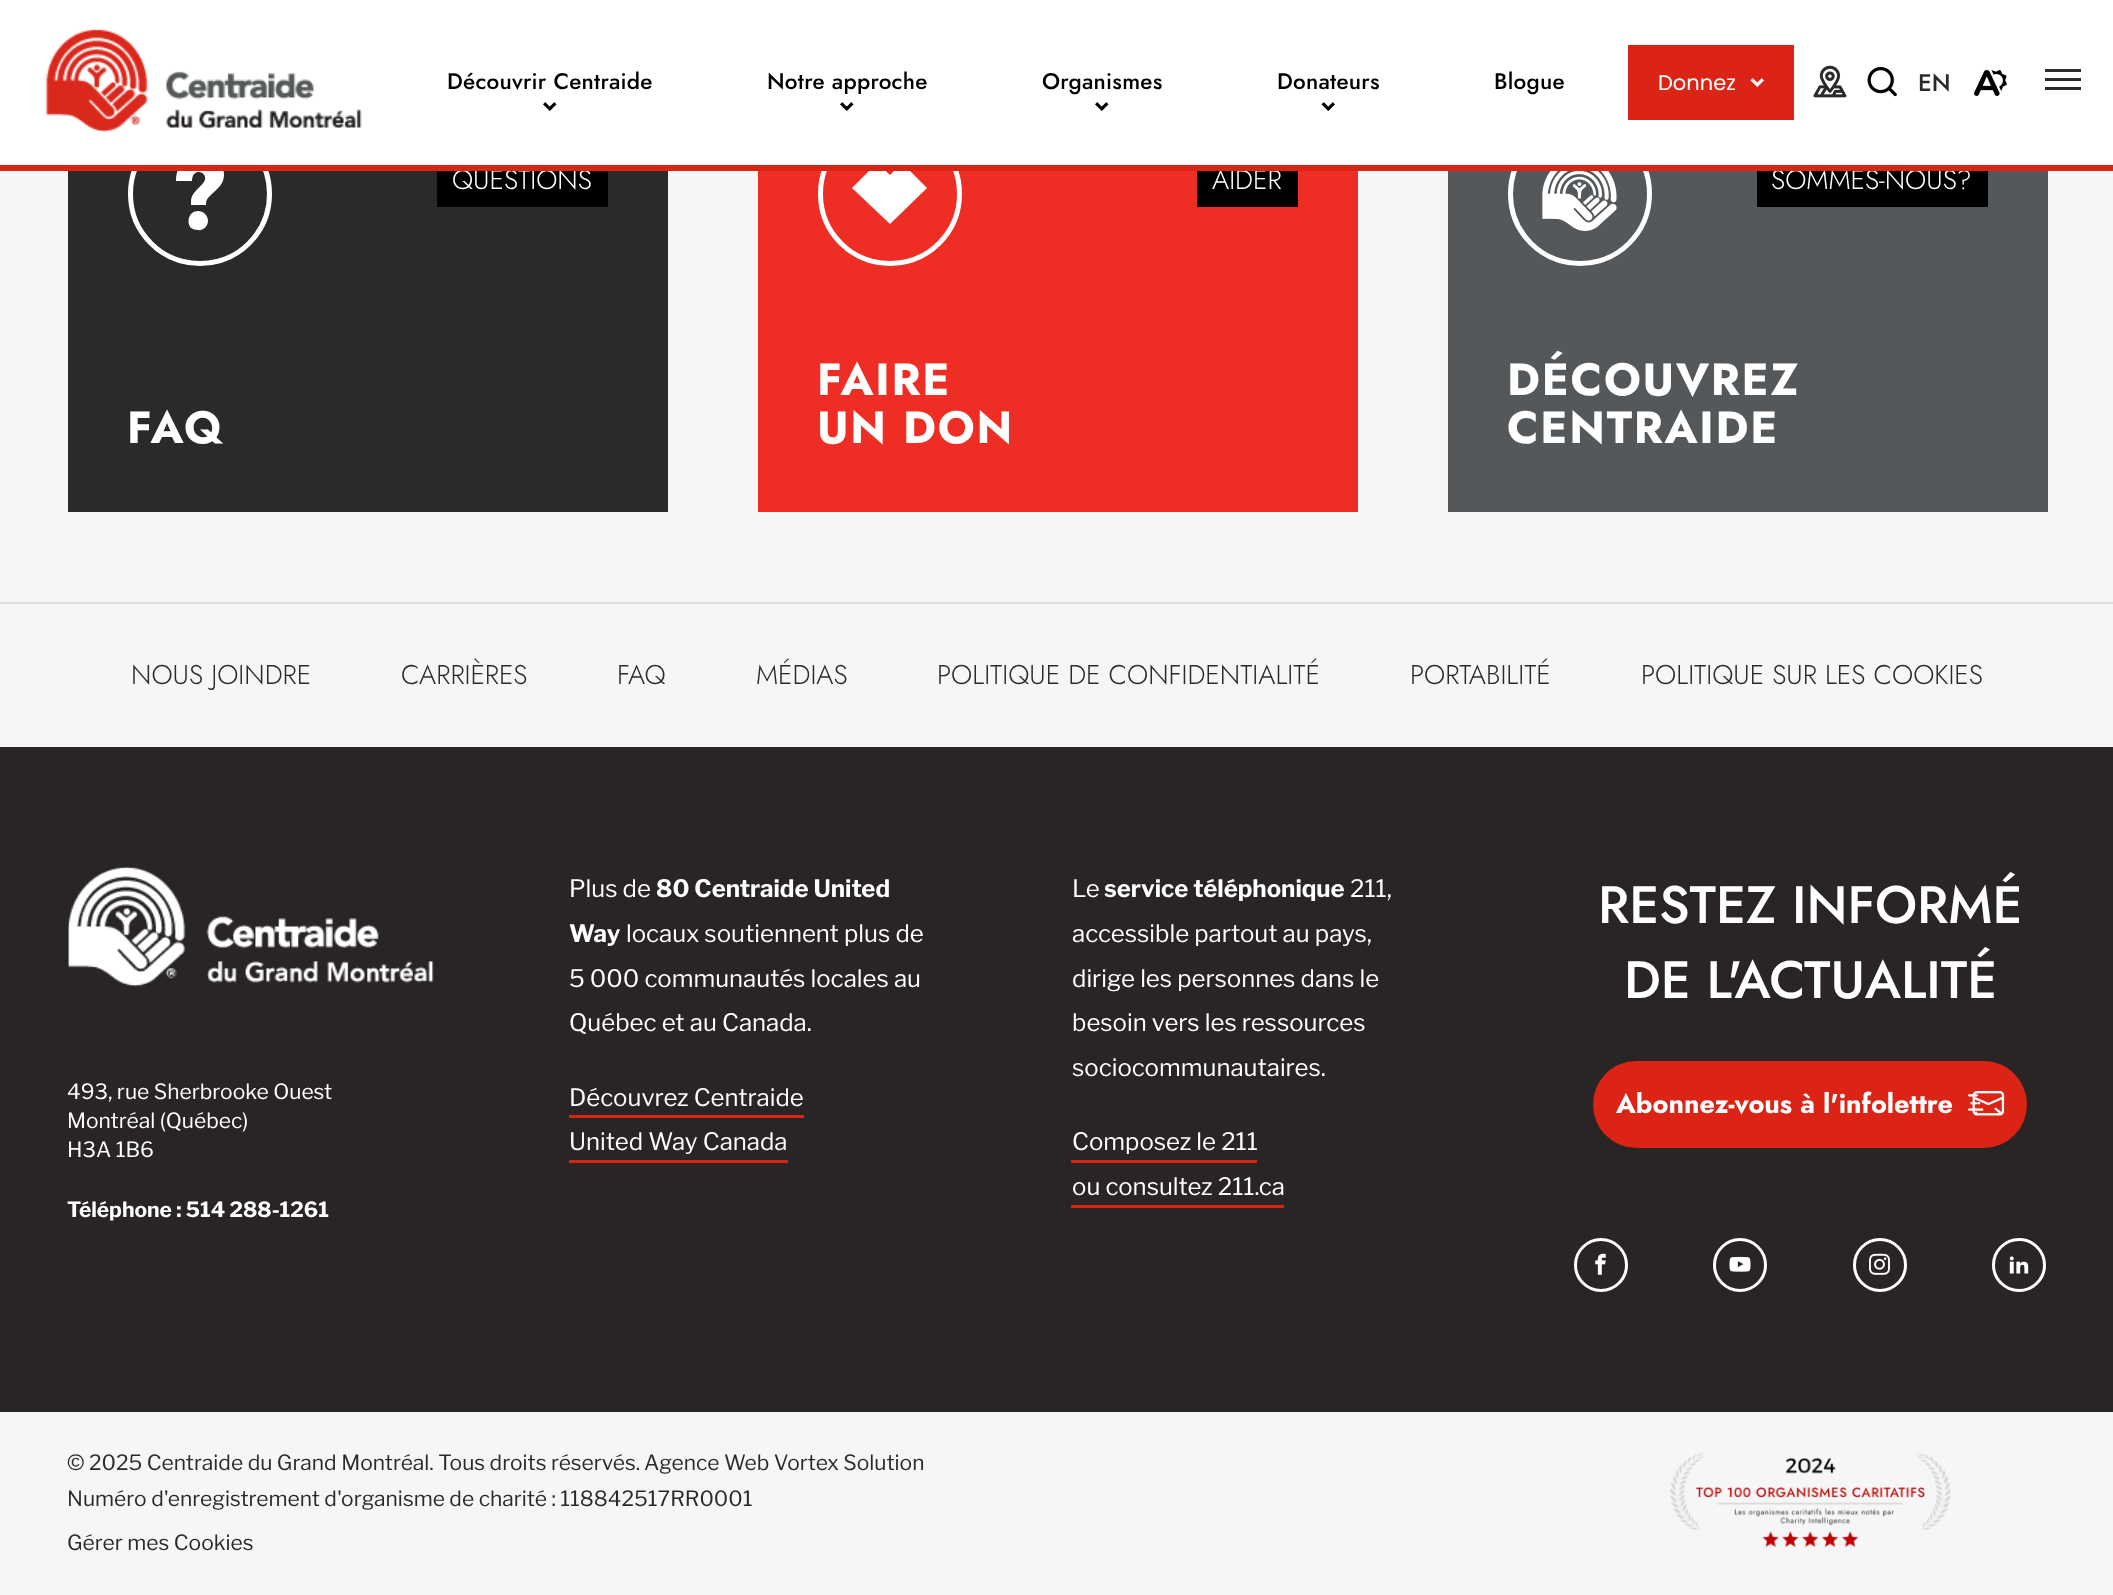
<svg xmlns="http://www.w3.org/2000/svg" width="2113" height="1595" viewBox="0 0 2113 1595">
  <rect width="100%" height="100%" fill="#f6f6f6"/>
  <rect x="68" y="171" width="600" height="341" fill="#2c2a29"/>
  <circle cx="200" cy="194" r="69.5" fill="none" stroke="#ffffff" stroke-width="5"/>
  <path d="M192 181C192 166 210 172 204 182C198 190 190 193 191 204V205H206C206 203 206 200 208 198C214 191 224 186 224 175C225 151 176 146 176 181ZM198 211C189 211 186 222 191 228C193 229 195 230 198 230C203 231 208 226 208 221C208 215 203 211 198 211Z" fill="#ffffff"/>
  <rect x="758" y="171" width="600" height="341" fill="#ee2e24"/>
  <circle cx="890" cy="194" r="69.5" fill="none" stroke="#ffffff" stroke-width="5"/>
  <path d="M890 175L902 163L927 188L890 224L852 188L877 163Z" fill="#ffffff"/>
  <rect x="1448" y="171" width="600" height="341" fill="#54585a"/>
  <circle cx="1580" cy="194" r="69.5" fill="none" stroke="#ffffff" stroke-width="5"/>
  <rect x="0" y="0" width="2113" height="165" fill="#ffffff"/>
  <image x="46" y="29" width="316" height="104" href="img1.png"/>
  <text x="447" y="89" font-family="Jost" font-size="22.5" font-weight="500" letter-spacing="0.25" fill="#000000">Découvrir Centraide</text>
  <image x="543" y="102" width="14" height="9" href="img2.png"/>
  <text x="767" y="89" font-family="Jost" font-size="22.5" font-weight="500" letter-spacing="0.25" fill="#000000">Notre approche</text>
  <image x="840" y="102" width="14" height="9" href="img2.png"/>
  <text x="1042" y="89" font-family="Jost" font-size="22.5" font-weight="500" letter-spacing="0.25" fill="#000000">Organismes</text>
  <image x="1095" y="102" width="14" height="9" href="img2.png"/>
  <text x="1277" y="89" font-family="Jost" font-size="22.5" font-weight="500" letter-spacing="0.25" fill="#000000">Donateurs</text>
  <image x="1321" y="102" width="14" height="9" href="img3.png"/>
  <text x="1494" y="89" font-family="Jost" font-size="22.5" font-weight="500" letter-spacing="0.25" fill="#000000">Blogue</text>
  <rect x="1628" y="45" width="166" height="75" fill="#db2416"/>
  <text x="1658" y="90" font-family="Poppins" font-size="21" fill="#ffffff">Donnez</text>
  <image x="1750" y="78" width="14" height="9" href="img4.png"/>
  <image x="1813" y="65" width="34" height="33" href="img5.png"/>
  <image x="1867" y="67" width="30" height="30" href="img6.png"/>
  <text x="1918" y="91" font-family="Jost" font-size="24" font-weight="500" fill="#2c2a29">EN</text>
  <image x="1974" y="70" width="33" height="26" href="img7.png"/>
  <rect x="2045" y="78" width="36" height="3" fill="#2c2a29"/>
  <rect x="2045" y="69" width="36" height="3" fill="#2c2a29"/>
  <rect x="2045" y="87" width="36" height="3" fill="#2c2a29"/>
  <rect x="437" y="171" width="171" height="36" fill="#000000"/>
  <text x="452" y="189" font-family="Jost" font-size="27" font-weight="300" fill="#ffffff">QUESTIONS</text>
  <rect x="1197" y="171" width="101" height="36" fill="#000000"/>
  <text x="1212" y="189" font-family="Jost" font-size="27" font-weight="300" fill="#ffffff">AIDER</text>
  <rect x="1757" y="171" width="231" height="36" fill="#000000"/>
  <text x="1771" y="189" font-family="Jost" font-size="27" font-weight="300" fill="#ffffff">SOMMES-NOUS?</text>
  <rect x="0" y="165" width="2113" height="6" fill="#db2416"/>
  <text x="127" y="443" font-family="Jost" font-size="45" font-weight="bold" letter-spacing="1.75" fill="#ffffff">FAQ</text>
  <text x="817" y="395" font-family="Jost" font-size="45" font-weight="bold" letter-spacing="1.75" fill="#ffffff">FAIRE</text>
  <text x="817" y="443" font-family="Jost" font-size="45" font-weight="bold" letter-spacing="1.75" fill="#ffffff">UN DON</text>
  <image x="1542" y="171" width="75" height="60" href="img8.png"/>
  <text x="1507" y="395" font-family="Jost" font-size="45" font-weight="bold" letter-spacing="1.75" fill="#ffffff">DÉCOUVREZ</text>
  <text x="1507" y="443" font-family="Jost" font-size="45" font-weight="bold" letter-spacing="1.75" fill="#ffffff">CENTRAIDE</text>
  <rect x="0" y="747" width="2113" height="665" fill="#282524"/>
  <rect x="0" y="602" width="2113" height="2" fill="#dedede"/>
  <text x="131" y="684" font-family="Jost" font-size="27" font-weight="300" fill="#2c2a29">NOUS JOINDRE</text>
  <text x="401" y="684" font-family="Jost" font-size="27" font-weight="300" fill="#2c2a29">CARRIÈRES</text>
  <text x="617" y="684" font-family="Jost" font-size="27" font-weight="300" fill="#2c2a29">FAQ</text>
  <text x="756" y="684" font-family="Jost" font-size="27" font-weight="300" fill="#2c2a29">MÉDIAS</text>
  <text x="937" y="684" font-family="Jost" font-size="27" font-weight="300" fill="#2c2a29">POLITIQUE DE CONFIDENTIALITÉ</text>
  <text x="1410" y="684" font-family="Jost" font-size="27" font-weight="300" fill="#2c2a29">PORTABILITÉ</text>
  <text x="1641" y="684" font-family="Jost" font-size="27" font-weight="300" fill="#2c2a29">POLITIQUE SUR LES COOKIES</text>
  <image x="68" y="867" width="366" height="120" href="img9.png"/>
  <text x="67" y="1099" font-family="Libre Franklin" font-size="21" fill="#ffffff">493, rue Sherbrooke Ouest</text>
  <text x="67" y="1128" font-family="Libre Franklin" font-size="21" fill="#ffffff">Montréal (Québec)</text>
  <text x="67" y="1157" font-family="Libre Franklin" font-size="21" fill="#ffffff">H3A 1B6</text>
  <text x="67" y="1217" font-family="Libre Franklin" font-size="21" font-weight="bold" fill="#ffffff">Téléphone : 514 288-1261</text>
  <text x="569" y="897" font-family="Libre Franklin" font-size="24" fill="#ffffff">Plus de</text>
  <text x="656" y="897" font-family="Libre Franklin" font-size="24" font-weight="bold" fill="#ffffff">80 Centraide United</text>
  <text x="569" y="942" font-family="Libre Franklin" font-size="24" font-weight="bold" fill="#ffffff">Way</text>
  <text x="626" y="942" font-family="Libre Franklin" font-size="24" fill="#ffffff">locaux soutiennent plus de</text>
  <text x="569" y="987" font-family="Libre Franklin" font-size="24" fill="#ffffff">5 000 communautés locales au</text>
  <text x="569" y="1031" font-family="Libre Franklin" font-size="24" fill="#ffffff">Québec et au Canada.</text>
  <text x="569" y="1106" font-family="Libre Franklin" font-size="24" fill="#ffffff">Découvrez Centraide</text>
  <rect x="569" y="1115" width="235" height="3" fill="#db2416"/>
  <text x="569" y="1150" font-family="Libre Franklin" font-size="24" fill="#ffffff">United Way Canada</text>
  <rect x="569" y="1160" width="219" height="3" fill="#db2416"/>
  <text x="1072" y="897" font-family="Libre Franklin" font-size="24" fill="#ffffff">Le</text>
  <text x="1104" y="897" font-family="Libre Franklin" font-size="24" font-weight="bold" fill="#ffffff">service téléphonique</text>
  <text x="1350" y="897" font-family="Libre Franklin" font-size="24" fill="#ffffff">211,</text>
  <text x="1072" y="942" font-family="Libre Franklin" font-size="24" fill="#ffffff">accessible partout au pays,</text>
  <text x="1072" y="987" font-family="Libre Franklin" font-size="24" fill="#ffffff">dirige les personnes dans le</text>
  <text x="1072" y="1031" font-family="Libre Franklin" font-size="24" fill="#ffffff">besoin vers les ressources</text>
  <text x="1072" y="1076" font-family="Libre Franklin" font-size="24" fill="#ffffff">sociocommunautaires.</text>
  <text x="1072" y="1150" font-family="Libre Franklin" font-size="24" fill="#ffffff">Composez le 211</text>
  <rect x="1071" y="1160" width="186" height="3" fill="#db2416"/>
  <text x="1072" y="1195" font-family="Libre Franklin" font-size="24" fill="#ffffff">ou consultez 211.ca</text>
  <rect x="1071" y="1205" width="213" height="3" fill="#db2416"/>
  <text x="1598" y="923" font-family="Jost" font-size="52.5" font-weight="500" fill="#ffffff">RESTEZ INFORMÉ</text>
  <text x="1624" y="998" font-family="Jost" font-size="52.5" font-weight="500" fill="#ffffff">DE L'ACTUALITÉ</text>
  <rect x="1593" y="1061" width="434" height="87" rx="43.5" fill="#db2416"/>
  <text x="1616" y="1113" font-family="Jost" font-size="27" font-weight="bold" fill="#ffffff">Abonnez-vous à l'infolettre</text>
  <image x="1968" y="1091" width="37" height="25" href="img10.png"/>
  <circle cx="1601" cy="1265" r="25.5" fill="none" stroke="#ffffff" stroke-width="3"/>
  <image x="1595" y="1253" width="11" height="22" href="img11.png"/>
  <circle cx="1740" cy="1265" r="25.5" fill="none" stroke="#ffffff" stroke-width="3"/>
  <image x="1729" y="1256" width="22" height="16" href="img12.png"/>
  <circle cx="1880" cy="1265" r="25.5" fill="none" stroke="#ffffff" stroke-width="3"/>
  <image x="1869" y="1253" width="21" height="22" href="img13.png"/>
  <circle cx="2019" cy="1265" r="25.5" fill="none" stroke="#ffffff" stroke-width="3"/>
  <image x="2009" y="1256" width="20" height="18" href="img14.png"/>
  <text x="67" y="1470" font-family="Libre Franklin" font-size="21" fill="#2c2a29">© 2025 Centraide du Grand Montréal. Tous droits réservés.</text>
  <text x="644" y="1470" font-family="Libre Franklin" font-size="21" fill="#2c2a29">Agence Web Vortex Solution</text>
  <text x="67" y="1506" font-family="Libre Franklin" font-size="21" fill="#2c2a29">Numéro d'enregistrement d'organisme de charité : 118842517RR0001</text>
  <text x="67" y="1550" font-family="Libre Franklin" font-size="21" fill="#2c2a29">Gérer mes Cookies</text>
  <image x="1670" y="1453" width="281" height="95" href="img15.png"/>
</svg>
